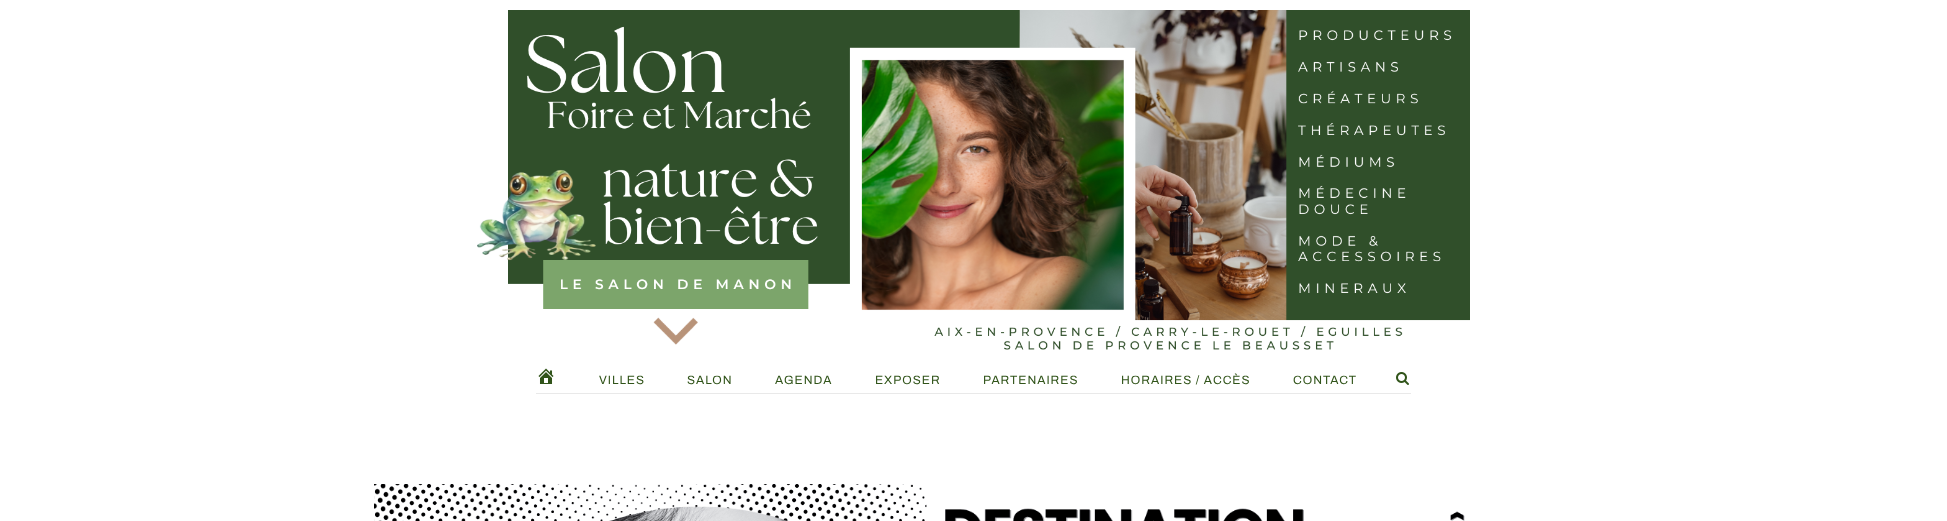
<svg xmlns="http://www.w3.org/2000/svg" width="1947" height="521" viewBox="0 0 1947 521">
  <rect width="100%" height="100%" fill="#ffffff"/>
  <image x="477" y="10" width="993" height="340" href="img1.png"/>
  <rect x="536" y="393" width="875" height="1" fill="#e9e9e9"/>
  <image x="538" y="368" width="16" height="16" href="img2.png"/>
  <text x="599" y="384" font-family="Archivo" font-size="12" font-weight="600" letter-spacing="1" fill="#31541a">VILLES</text>
  <text x="687" y="384" font-family="Archivo" font-size="12" font-weight="600" letter-spacing="1" fill="#31541a">SALON</text>
  <text x="775" y="384" font-family="Archivo" font-size="12" font-weight="600" letter-spacing="1" fill="#31541a">AGENDA</text>
  <text x="875" y="384" font-family="Archivo" font-size="12" font-weight="600" letter-spacing="1" fill="#31541a">EXPOSER</text>
  <text x="983" y="384" font-family="Archivo" font-size="12" font-weight="600" letter-spacing="1" fill="#31541a">PARTENAIRES</text>
  <text x="1121" y="384" font-family="Archivo" font-size="12" font-weight="600" letter-spacing="1" fill="#31541a">HORAIRES / ACCÈS</text>
  <text x="1293" y="384" font-family="Archivo" font-size="12" font-weight="600" letter-spacing="1" fill="#31541a">CONTACT</text>
  <image x="1396" y="372" width="13" height="13" href="img3.png"/>
  <image x="374" y="484" width="1091" height="37" href="img4.png"/>
</svg>
